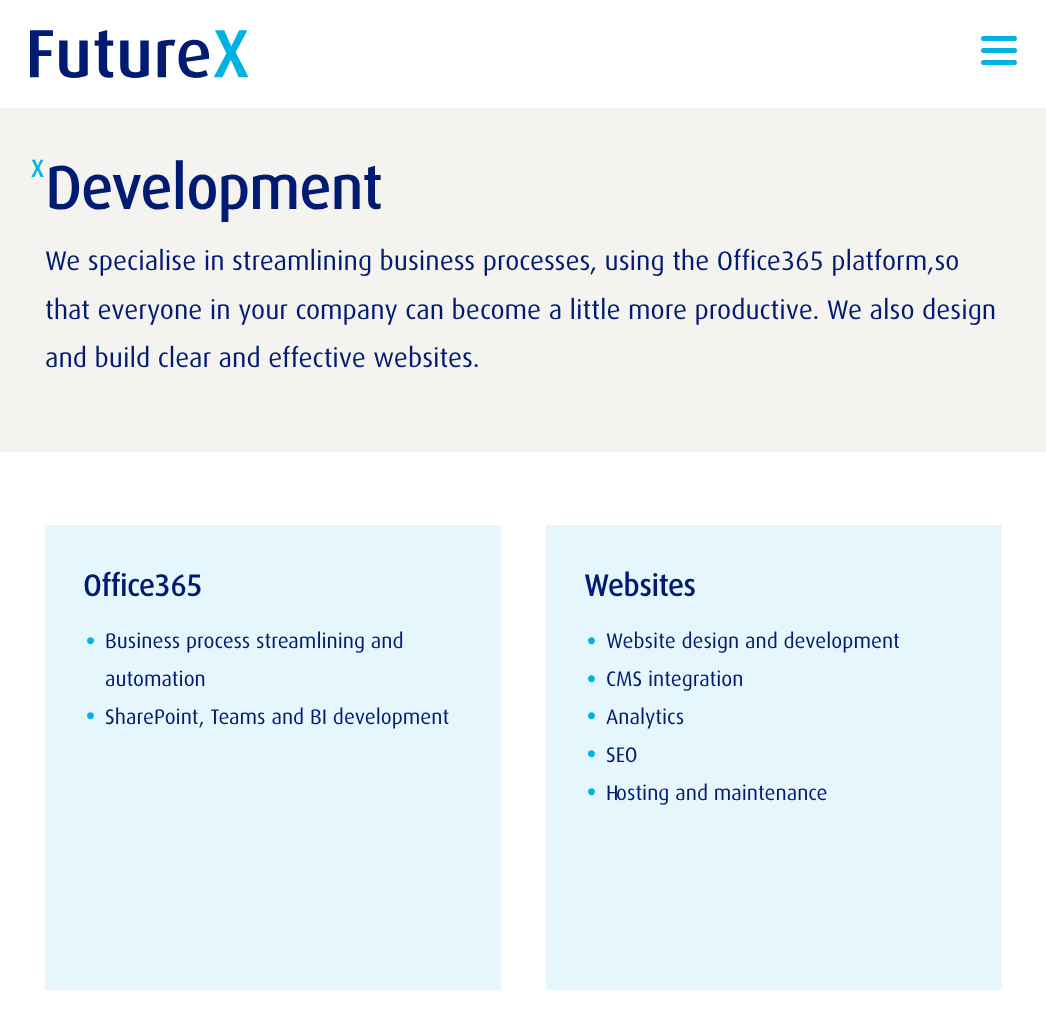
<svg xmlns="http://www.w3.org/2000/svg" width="1046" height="1028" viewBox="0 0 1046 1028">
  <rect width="100%" height="100%" fill="#ffffff"/>
  <image x="30" y="30" width="219" height="48" href="img1.png"/>
  <rect x="981" y="36" width="36" height="5" rx="2.5" fill="#00b2e3"/>
  <rect x="981" y="48" width="36" height="5" rx="2.5" fill="#00b2e3"/>
  <rect x="981" y="60" width="36" height="5" rx="2.5" fill="#00b2e3"/>
  <rect x="0" y="108" width="1046" height="344" fill="#f4f3ef"/>
  <text x="31" y="177" font-family="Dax" font-size="24" font-weight="bold" fill="#01b3e3">X</text>
  <text x="45" y="209" font-family="Dax" font-size="60" font-weight="bold" fill="#001b71">Development</text>
  <text x="45" y="270" font-family="Dax" font-size="27" fill="#001b71">We specialise in streamlining business processes, using the Office365 platform,so</text>
  <text x="45" y="319" font-family="Dax" font-size="27" fill="#001b71">that everyone in your company can become a little more productive. We also design</text>
  <text x="45" y="367" font-family="Dax" font-size="27" fill="#001b71">and build clear and effective websites.</text>
  <rect x="45" y="525" width="456" height="465" fill="#e5f7fc"/>
  <text x="83" y="596" font-family="Dax" font-size="30" font-weight="bold" fill="#001b71">Office365</text>
  <text x="83" y="644" font-family="Dax" font-size="60" fill="#01b3e3">.</text>
  <text x="105" y="648" font-family="Dax" font-size="21" fill="#001b71">Business process streamlining and</text>
  <text x="105" y="686" font-family="Dax" font-size="21" fill="#001b71">automation</text>
  <text x="83" y="719" font-family="Dax" font-size="60" fill="#01b3e3">.</text>
  <text x="105" y="724" font-family="Dax" font-size="21" fill="#001b71">SharePoint, Teams and BI development</text>
  <rect x="546" y="525" width="456" height="465" fill="#e5f7fc"/>
  <text x="584" y="596" font-family="Dax" font-size="30" font-weight="bold" fill="#001b71">Websites</text>
  <text x="584" y="644" font-family="Dax" font-size="60" fill="#01b3e3">.</text>
  <text x="606" y="648" font-family="Dax" font-size="21" fill="#001b71">Website design and development</text>
  <text x="584" y="682" font-family="Dax" font-size="60" fill="#01b3e3">.</text>
  <text x="606" y="686" font-family="Dax" font-size="21" fill="#001b71">CMS integration</text>
  <text x="584" y="719" font-family="Dax" font-size="60" fill="#01b3e3">.</text>
  <text x="606" y="724" font-family="Dax" font-size="21" fill="#001b71">Analytics</text>
  <text x="584" y="757" font-family="Dax" font-size="60" fill="#01b3e3">.</text>
  <text x="606" y="762" font-family="Dax" font-size="21" fill="#001b71">SEO</text>
  <text x="584" y="795" font-family="Dax" font-size="60" fill="#01b3e3">.</text>
  <text x="606" y="800" font-family="Dax" font-size="21" fill="#001b71">Hosting and maintenance</text>
</svg>
